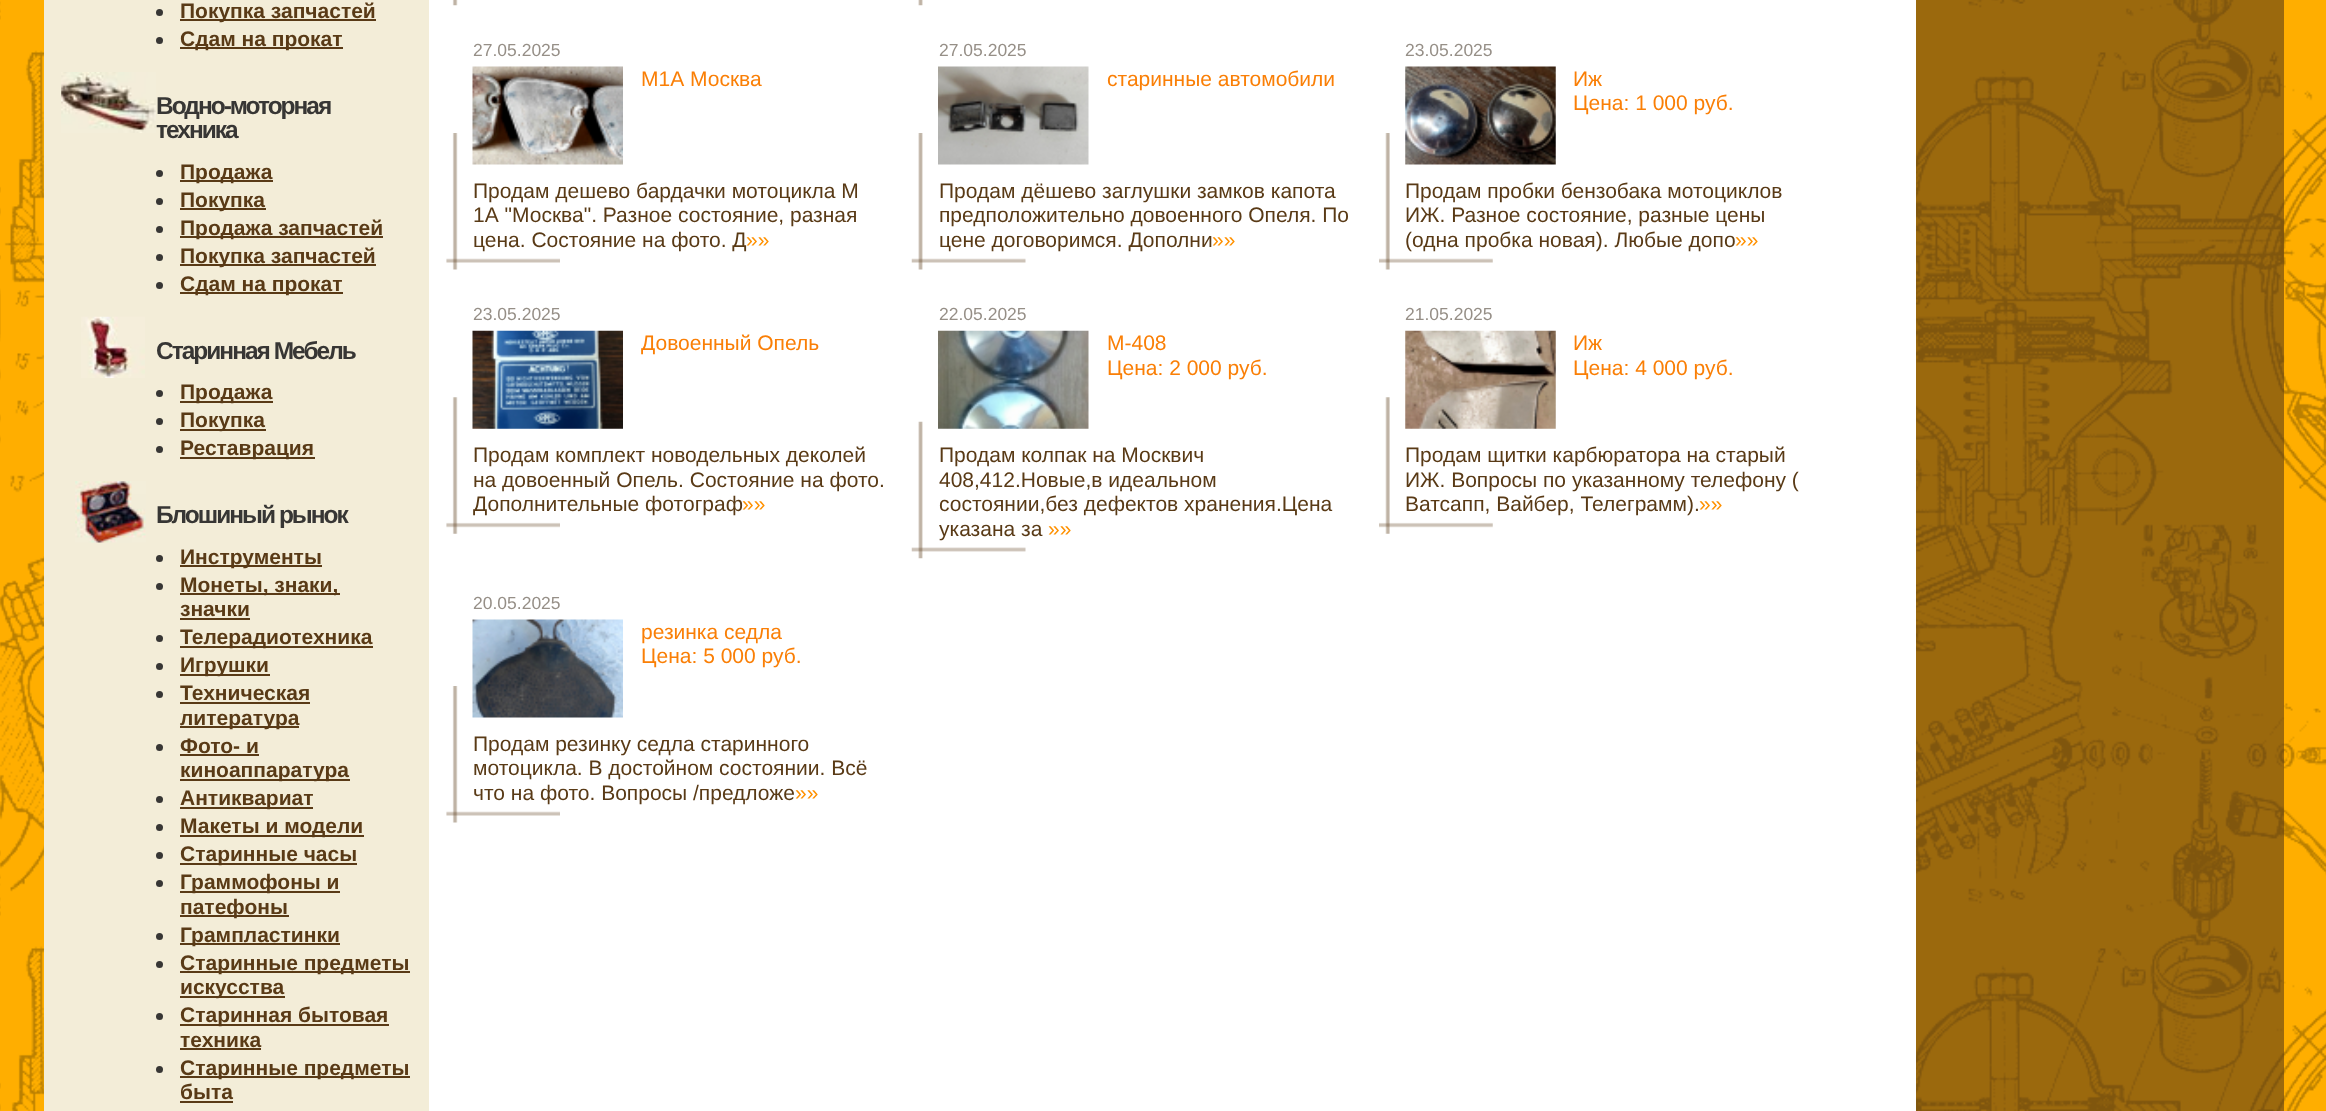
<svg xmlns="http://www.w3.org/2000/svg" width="2326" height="1111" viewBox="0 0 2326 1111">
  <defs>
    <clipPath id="clip1"><rect x="641" y="331" width="248" height="24"/></clipPath>
  </defs>
  <rect width="100%" height="100%" fill="#ffffff"/>
  <image x="0" y="0" width="2326" height="1111" href="img1.png"/>
  <rect x="44" y="0" width="385" height="1111" fill="#f3edd8"/>
  <circle cx="159.5" cy="12.5" r="3.5" fill="#373634"/>
  <rect x="180" y="19" width="196" height="2" fill="#593a16"/>
  <text x="180" y="18" font-family="Liberation Sans" font-size="21" font-weight="bold" fill="#593a16">Покупка запчастей</text>
  <circle cx="159.5" cy="40.5" r="3.5" fill="#373634"/>
  <rect x="180" y="47" width="163" height="2" fill="#593a16"/>
  <text x="180" y="46" font-family="Liberation Sans" font-size="21" font-weight="bold" fill="#593a16">Сдам на прокат</text>
  <image x="61" y="72" width="95" height="61" href="img2.png"/>
  <text x="156" y="114" font-family="Liberation Sans" font-size="24.5" font-weight="bold" letter-spacing="-2" fill="#373634">Водно-моторная</text>
  <text x="156" y="138" font-family="Liberation Sans" font-size="24.5" font-weight="bold" letter-spacing="-2" fill="#373634">техника</text>
  <circle cx="159.5" cy="173.5" r="3.5" fill="#373634"/>
  <rect x="180" y="180" width="93" height="2" fill="#593a16"/>
  <text x="180" y="179" font-family="Liberation Sans" font-size="21" font-weight="bold" fill="#593a16">Продажа</text>
  <circle cx="159.5" cy="201.5" r="3.5" fill="#373634"/>
  <rect x="180" y="208" width="86" height="2" fill="#593a16"/>
  <text x="180" y="207" font-family="Liberation Sans" font-size="21" font-weight="bold" fill="#593a16">Покупка</text>
  <circle cx="159.5" cy="229.5" r="3.5" fill="#373634"/>
  <rect x="180" y="236" width="203" height="2" fill="#593a16"/>
  <text x="180" y="235" font-family="Liberation Sans" font-size="21" font-weight="bold" fill="#593a16">Продажа запчастей</text>
  <circle cx="159.5" cy="257.5" r="3.5" fill="#373634"/>
  <rect x="180" y="264" width="196" height="2" fill="#593a16"/>
  <text x="180" y="263" font-family="Liberation Sans" font-size="21" font-weight="bold" fill="#593a16">Покупка запчастей</text>
  <circle cx="159.5" cy="285.5" r="3.5" fill="#373634"/>
  <rect x="180" y="292" width="163" height="2" fill="#593a16"/>
  <text x="180" y="291" font-family="Liberation Sans" font-size="21" font-weight="bold" fill="#593a16">Сдам на прокат</text>
  <image x="81" y="316" width="64" height="62" href="img3.png"/>
  <text x="156" y="359" font-family="Liberation Sans" font-size="24.5" font-weight="bold" letter-spacing="-2" fill="#373634">Старинная Мебель</text>
  <circle cx="159.5" cy="393.5" r="3.5" fill="#373634"/>
  <rect x="180" y="401" width="93" height="2" fill="#593a16"/>
  <text x="180" y="399" font-family="Liberation Sans" font-size="21" font-weight="bold" fill="#593a16">Продажа</text>
  <circle cx="159.5" cy="421.5" r="3.5" fill="#373634"/>
  <rect x="180" y="429" width="86" height="2" fill="#593a16"/>
  <text x="180" y="427" font-family="Liberation Sans" font-size="21" font-weight="bold" fill="#593a16">Покупка</text>
  <circle cx="159.5" cy="449.5" r="3.5" fill="#373634"/>
  <rect x="180" y="457" width="135" height="2" fill="#593a16"/>
  <text x="180" y="455" font-family="Liberation Sans" font-size="21" font-weight="bold" fill="#593a16">Реставрация</text>
  <image x="75" y="481" width="71" height="62" href="img4.png"/>
  <text x="156" y="523" font-family="Liberation Sans" font-size="24.5" font-weight="bold" letter-spacing="-2" fill="#373634">Блошиный рынок</text>
  <circle cx="159.5" cy="558.5" r="3.5" fill="#373634"/>
  <rect x="180" y="565" width="142" height="2" fill="#593a16"/>
  <text x="180" y="564" font-family="Liberation Sans" font-size="21" font-weight="bold" fill="#593a16">Инструменты</text>
  <circle cx="159.5" cy="586.5" r="3.5" fill="#373634"/>
  <rect x="180" y="593" width="160" height="2" fill="#593a16"/>
  <text x="180" y="592" font-family="Liberation Sans" font-size="21" font-weight="bold" fill="#593a16">Монеты, знаки,</text>
  <text x="180" y="616" font-family="Liberation Sans" font-size="21" font-weight="bold" fill="#593a16">значки</text>
  <rect x="180" y="618" width="70" height="2" fill="#593a16"/>
  <circle cx="159.5" cy="638.5" r="3.5" fill="#373634"/>
  <rect x="180" y="646" width="193" height="2" fill="#593a16"/>
  <text x="180" y="644" font-family="Liberation Sans" font-size="21" font-weight="bold" fill="#593a16">Телерадиотехника</text>
  <circle cx="159.5" cy="666.5" r="3.5" fill="#373634"/>
  <rect x="180" y="674" width="90" height="2" fill="#593a16"/>
  <text x="180" y="672" font-family="Liberation Sans" font-size="21" font-weight="bold" fill="#593a16">Игрушки</text>
  <circle cx="159.5" cy="694.5" r="3.5" fill="#373634"/>
  <text x="180" y="700" font-family="Liberation Sans" font-size="21" font-weight="bold" fill="#593a16">Техническая</text>
  <rect x="180" y="702" width="130" height="2" fill="#593a16"/>
  <rect x="180" y="726" width="119" height="2" fill="#593a16"/>
  <text x="180" y="725" font-family="Liberation Sans" font-size="21" font-weight="bold" fill="#593a16">литература</text>
  <circle cx="159.5" cy="747.5" r="3.5" fill="#373634"/>
  <text x="180" y="753" font-family="Liberation Sans" font-size="21" font-weight="bold" fill="#593a16">Фото- и</text>
  <rect x="180" y="754" width="79" height="2" fill="#593a16"/>
  <rect x="180" y="779" width="170" height="2" fill="#593a16"/>
  <text x="180" y="777" font-family="Liberation Sans" font-size="21" font-weight="bold" fill="#593a16">киноаппаратура</text>
  <circle cx="159.5" cy="799.5" r="3.5" fill="#373634"/>
  <rect x="180" y="807" width="133" height="2" fill="#593a16"/>
  <text x="180" y="805" font-family="Liberation Sans" font-size="21" font-weight="bold" fill="#593a16">Антиквариат</text>
  <circle cx="159.5" cy="827.5" r="3.5" fill="#373634"/>
  <rect x="180" y="835" width="184" height="2" fill="#593a16"/>
  <text x="180" y="833" font-family="Liberation Sans" font-size="21" font-weight="bold" fill="#593a16">Макеты и модели</text>
  <circle cx="159.5" cy="855.5" r="3.5" fill="#373634"/>
  <rect x="180" y="863" width="177" height="2" fill="#593a16"/>
  <text x="180" y="861" font-family="Liberation Sans" font-size="21" font-weight="bold" fill="#593a16">Старинные часы</text>
  <circle cx="159.5" cy="883.5" r="3.5" fill="#373634"/>
  <rect x="180" y="891" width="160" height="2" fill="#593a16"/>
  <text x="180" y="889" font-family="Liberation Sans" font-size="21" font-weight="bold" fill="#593a16">Граммофоны и</text>
  <rect x="180" y="915" width="109" height="2" fill="#593a16"/>
  <text x="180" y="914" font-family="Liberation Sans" font-size="21" font-weight="bold" fill="#593a16">патефоны</text>
  <circle cx="159.5" cy="936.5" r="3.5" fill="#373634"/>
  <rect x="180" y="943" width="160" height="2" fill="#593a16"/>
  <text x="180" y="942" font-family="Liberation Sans" font-size="21" font-weight="bold" fill="#593a16">Грампластинки</text>
  <circle cx="159.5" cy="964.5" r="3.5" fill="#373634"/>
  <rect x="180" y="971" width="230" height="2" fill="#593a16"/>
  <text x="180" y="970" font-family="Liberation Sans" font-size="21" font-weight="bold" fill="#593a16">Старинные предметы</text>
  <rect x="180" y="996" width="105" height="2" fill="#593a16"/>
  <text x="180" y="994" font-family="Liberation Sans" font-size="21" font-weight="bold" fill="#593a16">искусства</text>
  <circle cx="159.5" cy="1016.5" r="3.5" fill="#373634"/>
  <rect x="180" y="1024" width="209" height="2" fill="#593a16"/>
  <text x="180" y="1022" font-family="Liberation Sans" font-size="21" font-weight="bold" fill="#593a16">Старинная бытовая</text>
  <text x="180" y="1047" font-family="Liberation Sans" font-size="21" font-weight="bold" fill="#593a16">техника</text>
  <rect x="180" y="1048" width="81" height="2" fill="#593a16"/>
  <circle cx="159.5" cy="1069.5" r="3.5" fill="#373634"/>
  <rect x="180" y="1076" width="230" height="2" fill="#593a16"/>
  <text x="180" y="1075" font-family="Liberation Sans" font-size="21" font-weight="bold" fill="#593a16">Старинные предметы</text>
  <text x="180" y="1099" font-family="Liberation Sans" font-size="21" font-weight="bold" fill="#593a16">быта</text>
  <rect x="180" y="1101" width="53" height="2" fill="#593a16"/>
  <rect x="429" y="0" width="1487" height="1111" fill="#ffffff"/>
  <image x="452" y="0" width="6" height="6" href="img5.png"/>
  <image x="918" y="0" width="5" height="6" href="img6.png"/>
  <image x="446" y="133" width="114" height="137" href="img7.png"/>
  <text x="473" y="56" font-family="Liberation Sans" font-size="17.5" fill="#968f87">27.05.2025</text>
  <image x="472" y="66" width="151" height="99" href="img8.png"/>
  <text x="641" y="86" font-family="Liberation Sans" font-size="21" fill="#fa7f06">М1А Москва</text>
  <text x="473" y="198" font-family="Liberation Sans" font-size="21" fill="#593a16">Продам дешево бардачки мотоцикла М</text>
  <text x="473" y="222" font-family="Liberation Sans" font-size="21" fill="#593a16">1А "Москва". Разное состояние, разная</text>
  <text x="473" y="247" font-family="Liberation Sans" font-size="21" fill="#593a16">цена. Состояние на фото. Д</text>
  <text x="746" y="247" font-family="Liberation Sans" font-size="21" fill="#ff9100">»»</text>
  <image x="911" y="133" width="115" height="137" href="img9.png"/>
  <text x="939" y="56" font-family="Liberation Sans" font-size="17.5" fill="#968f87">27.05.2025</text>
  <image x="938" y="66" width="151" height="99" href="img10.png"/>
  <text x="1107" y="86" font-family="Liberation Sans" font-size="21" fill="#fa7f06">старинные автомобили</text>
  <text x="939" y="198" font-family="Liberation Sans" font-size="21" fill="#593a16">Продам дёшево заглушки замков капота</text>
  <text x="939" y="222" font-family="Liberation Sans" font-size="21" fill="#593a16">предположительно довоенного Опеля. По</text>
  <text x="939" y="247" font-family="Liberation Sans" font-size="21" fill="#593a16">цене договоримся. Дополни</text>
  <text x="1212" y="247" font-family="Liberation Sans" font-size="21" fill="#ff9100">»»</text>
  <image x="1379" y="133" width="114" height="137" href="img11.png"/>
  <text x="1405" y="56" font-family="Liberation Sans" font-size="17.5" fill="#968f87">23.05.2025</text>
  <image x="1405" y="66" width="151" height="99" href="img12.png"/>
  <text x="1573" y="86" font-family="Liberation Sans" font-size="21" fill="#fa7f06">Иж</text>
  <text x="1573" y="110" font-family="Liberation Sans" font-size="21" fill="#fa7f06">Цена: 1 000 руб.</text>
  <text x="1405" y="198" font-family="Liberation Sans" font-size="21" fill="#593a16">Продам пробки бензобака мотоциклов</text>
  <text x="1405" y="222" font-family="Liberation Sans" font-size="21" fill="#593a16">ИЖ. Разное состояние, разные цены</text>
  <text x="1405" y="247" font-family="Liberation Sans" font-size="21" fill="#593a16">(одна пробка новая). Любые допо</text>
  <text x="1735" y="247" font-family="Liberation Sans" font-size="21" fill="#ff9100">»»</text>
  <image x="446" y="397" width="114" height="137" href="img13.png"/>
  <text x="473" y="320" font-family="Liberation Sans" font-size="17.5" fill="#968f87">23.05.2025</text>
  <image x="472" y="330" width="151" height="99" href="img14.png"/>
  <g clip-path="url(#clip1)">
    <text x="641" y="350" font-family="Liberation Sans" font-size="21" fill="#fa7f06">Довоенный Опель</text>
  </g>
  <text x="473" y="462" font-family="Liberation Sans" font-size="21" fill="#593a16">Продам комплект новодельных деколей</text>
  <text x="473" y="487" font-family="Liberation Sans" font-size="21" fill="#593a16">на довоенный Опель. Состояние на фото.</text>
  <text x="473" y="511" font-family="Liberation Sans" font-size="21" fill="#593a16">Дополнительные фотограф</text>
  <text x="742" y="511" font-family="Liberation Sans" font-size="21" fill="#ff9100">»»</text>
  <image x="911" y="421" width="115" height="138" href="img15.png"/>
  <text x="939" y="320" font-family="Liberation Sans" font-size="17.5" fill="#968f87">22.05.2025</text>
  <image x="938" y="330" width="151" height="99" href="img16.png"/>
  <text x="1107" y="350" font-family="Liberation Sans" font-size="21" fill="#fa7f06">М-408</text>
  <text x="1107" y="375" font-family="Liberation Sans" font-size="21" fill="#fa7f06">Цена: 2 000 руб.</text>
  <text x="939" y="462" font-family="Liberation Sans" font-size="21" fill="#593a16">Продам колпак на Москвич</text>
  <text x="939" y="487" font-family="Liberation Sans" font-size="21" fill="#593a16">408,412.Новые,в идеальном</text>
  <text x="939" y="511" font-family="Liberation Sans" font-size="21" fill="#593a16">состоянии,без дефектов хранения.Цена</text>
  <text x="939" y="536" font-family="Liberation Sans" font-size="21" fill="#593a16">указана за</text>
  <text x="1048" y="536" font-family="Liberation Sans" font-size="21" fill="#ff9100">»»</text>
  <image x="1379" y="397" width="114" height="137" href="img17.png"/>
  <text x="1405" y="320" font-family="Liberation Sans" font-size="17.5" fill="#968f87">21.05.2025</text>
  <image x="1405" y="330" width="151" height="99" href="img18.png"/>
  <text x="1573" y="350" font-family="Liberation Sans" font-size="21" fill="#fa7f06">Иж</text>
  <text x="1573" y="375" font-family="Liberation Sans" font-size="21" fill="#fa7f06">Цена: 4 000 руб.</text>
  <text x="1405" y="462" font-family="Liberation Sans" font-size="21" fill="#593a16">Продам щитки карбюратора на старый</text>
  <text x="1405" y="487" font-family="Liberation Sans" font-size="21" fill="#593a16">ИЖ. Вопросы по указанному телефону (</text>
  <text x="1405" y="511" font-family="Liberation Sans" font-size="21" fill="#593a16">Ватсапп, Вайбер, Телеграмм).</text>
  <text x="1699" y="511" font-family="Liberation Sans" font-size="21" fill="#ff9100">»»</text>
  <image x="446" y="686" width="114" height="137" href="img7.png"/>
  <text x="473" y="609" font-family="Liberation Sans" font-size="17.5" fill="#968f87">20.05.2025</text>
  <image x="472" y="619" width="151" height="99" href="img19.png"/>
  <text x="641" y="639" font-family="Liberation Sans" font-size="21" fill="#fa7f06">резинка седла</text>
  <text x="641" y="663" font-family="Liberation Sans" font-size="21" fill="#fa7f06">Цена: 5 000 руб.</text>
  <text x="473" y="751" font-family="Liberation Sans" font-size="21" fill="#593a16">Продам резинку седла старинного</text>
  <text x="473" y="775" font-family="Liberation Sans" font-size="21" fill="#593a16">мотоцикла. В достойном состоянии. Всё</text>
  <text x="473" y="800" font-family="Liberation Sans" font-size="21" fill="#593a16">что на фото. Вопросы /предложе</text>
  <text x="795" y="800" font-family="Liberation Sans" font-size="21" fill="#ff9100">»»</text>
  <rect x="1916" y="0" width="368" height="1111" fill="#593a16" fill-opacity="0.6"/>
</svg>
